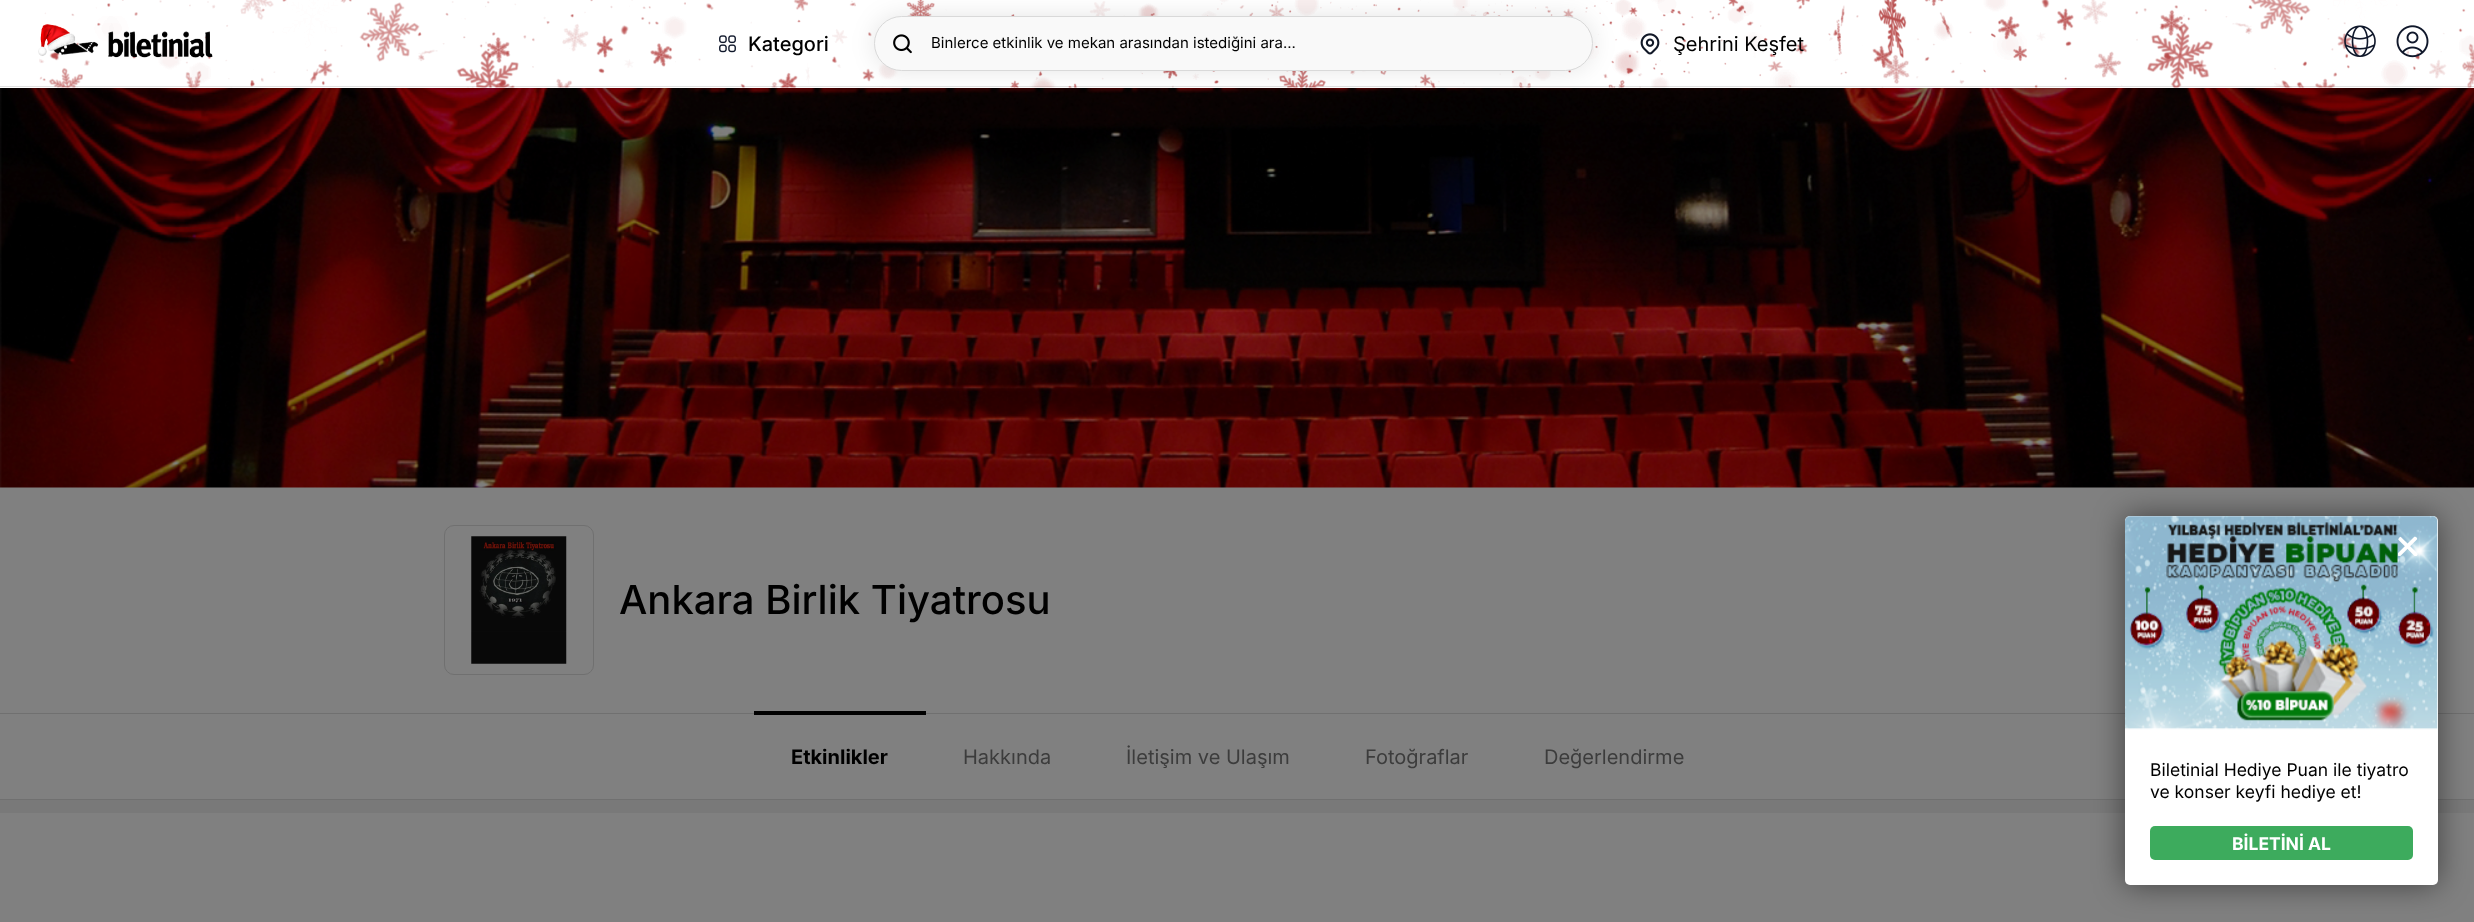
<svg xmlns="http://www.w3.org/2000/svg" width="2474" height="922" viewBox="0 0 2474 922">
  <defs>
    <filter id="blur1" x="-50%" y="-200%" width="200%" height="500%"><feGaussianBlur stdDeviation="12.5"/></filter>
    <filter id="blur2" x="-50%" y="-200%" width="200%" height="500%"><feGaussianBlur stdDeviation="15.5"/></filter>
  </defs>
  <rect width="100%" height="100%" fill="#808080"/>
  <image x="0" y="88" width="2474" height="400" href="img9.png"/>
  <rect x="0" y="0" width="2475" height="88" fill="#000000" fill-opacity="0.15" filter="url(#blur1)"/>
  <rect x="0" y="0" width="2474" height="88" fill="#ffffff"/>
  <rect x="0" y="86" width="2474" height="1" fill="#e1e1e1"/>
  <image x="39" y="0" width="2435" height="88" href="img1.png"/>
  <image x="39" y="0" width="2435" height="88" href="img2.png"/>
  <image x="38" y="24" width="175" height="34" href="img3.png"/>
  <image x="719" y="35" width="17" height="18" href="img4.png"/>
  <text x="748" y="51" font-family="Inter" font-size="20" font-weight="500" fill="#000000">Kategori</text>
  <rect x="874" y="16" width="719" height="55" rx="27.5" fill="#000000" fill-opacity="0.1" filter="url(#blur1)"/>
  <rect x="874.5" y="16.5" width="718" height="54" rx="27" fill="#f9f9f9" stroke="#d9d9d9"/>
  <image x="893" y="34" width="19" height="20" href="img5.png"/>
  <text x="931" y="48" font-family="Inter" font-size="15" fill="#000000">Binlerce etkinlik ve mekan arasından istediğini ara...</text>
  <image x="1640" y="33" width="20" height="22" href="img6.png"/>
  <text x="1673" y="51" font-family="Inter" font-size="20" fill="#000000">Şehrini Keşfet</text>
  <image x="2344" y="25" width="32" height="32" href="img7.png"/>
  <image x="2396" y="25" width="33" height="33" href="img8.png"/>
  <rect x="444.5" y="525.5" width="149" height="149" rx="9.5" fill="none" stroke="#707070"/>
  <image x="471" y="536" width="96" height="128" href="img10.png"/>
  <text x="619" y="614" font-family="Inter" font-size="40" font-weight="500" fill="#000000">Ankara Birlik Tiyatrosu</text>
  <rect x="0" y="713" width="2474" height="1" fill="#707070"/>
  <rect x="0" y="799" width="2474" height="1" fill="#707070"/>
  <rect x="754" y="711" width="172" height="4" fill="#000000"/>
  <text x="791" y="764" font-family="Inter" font-size="20" font-weight="bold" fill="#000000">Etkinlikler</text>
  <text x="963" y="764" font-family="Inter" font-size="20" fill="#3c3c3c">Hakkında</text>
  <text x="1126" y="764" font-family="Inter" font-size="20" fill="#3c3c3c">İletişim ve Ulaşım</text>
  <text x="1365" y="764" font-family="Inter" font-size="20" fill="#3c3c3c">Fotoğraflar</text>
  <text x="1544" y="764" font-family="Inter" font-size="20" fill="#3c3c3c">Değerlendirme</text>
  <rect x="0" y="800" width="2474" height="13" fill="#797979"/>
  <rect x="2125" y="516" width="313" height="369" rx="5" fill="#000000" fill-opacity="0.5" filter="url(#blur2)"/>
  <rect x="2125" y="516" width="313" height="369" rx="5" fill="#ffffff"/>
  <image x="2125" y="516" width="313" height="214" href="img11.png"/>
  <image x="2398" y="536" width="20" height="20" href="img12.png"/>
  <text x="2150" y="776" font-family="Inter" font-size="17.5" fill="#000000">Biletinial Hediye Puan ile tiyatro</text>
  <text x="2150" y="798" font-family="Inter" font-size="17.5" fill="#000000">ve konser keyfi hediye et!</text>
  <rect x="2150" y="826" width="263" height="34" rx="5" fill="#3dab5d"/>
  <text x="2232" y="850" font-family="Inter" font-size="17.5" font-weight="bold" fill="#ffffff">BİLETİNİ AL</text>
</svg>
